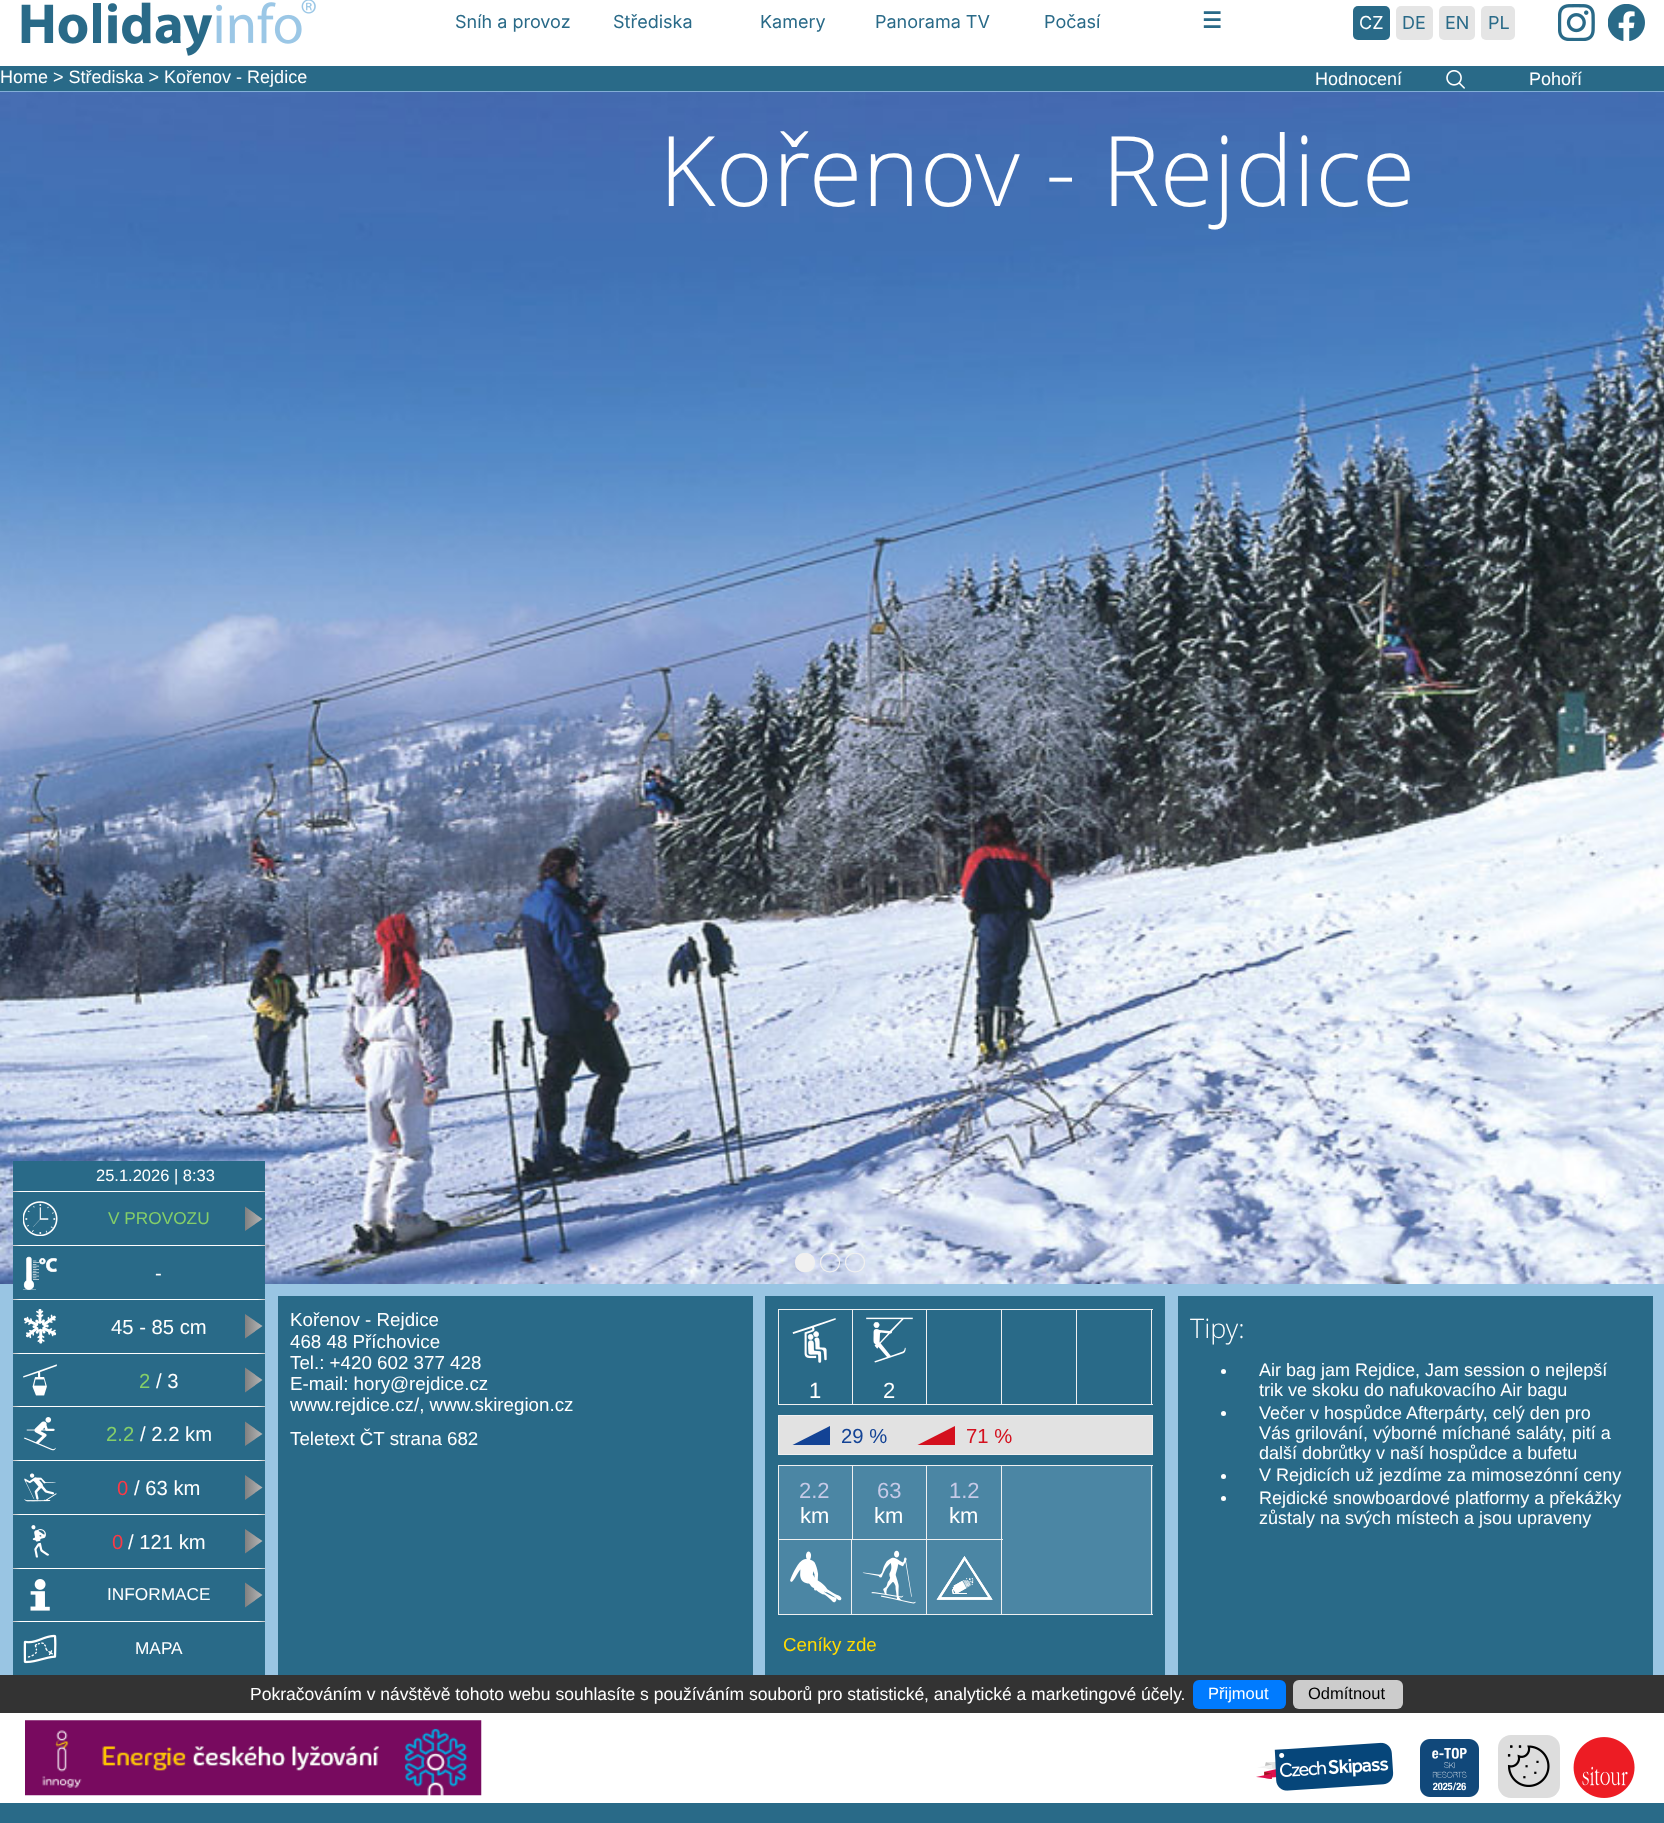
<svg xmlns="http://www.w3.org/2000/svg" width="1664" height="1823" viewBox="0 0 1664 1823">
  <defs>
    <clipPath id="clip1"><rect x="795" y="1253" width="20" height="20"/></clipPath>
    <clipPath id="clip2"><rect x="820" y="1253" width="20" height="20"/></clipPath>
    <clipPath id="clip3"><rect x="845" y="1253" width="20" height="20"/></clipPath>
    <linearGradient id="g1" gradientUnits="userSpaceOnUse" x1="13" y1="1192" x2="265" y2="1192"><stop offset="0" stop-color="#c0c0c0"/><stop offset="0.03" stop-color="#ffffff"/><stop offset="0.97" stop-color="#ffffff"/><stop offset="1" stop-color="#c0c0c0"/></linearGradient>
    <linearGradient id="g2" gradientUnits="userSpaceOnUse" x1="263" y1="1457" x2="245" y2="1457"><stop offset="0" stop-color="#b8b8b8"/><stop offset="1" stop-color="#808080"/></linearGradient>
    <linearGradient id="g3" gradientUnits="userSpaceOnUse" x1="13" y1="1246" x2="265" y2="1246"><stop offset="0" stop-color="#c0c0c0"/><stop offset="0.03" stop-color="#ffffff"/><stop offset="0.97" stop-color="#ffffff"/><stop offset="1" stop-color="#c0c0c0"/></linearGradient>
    <linearGradient id="g4" gradientUnits="userSpaceOnUse" x1="13" y1="1299" x2="265" y2="1299"><stop offset="0" stop-color="#c0c0c0"/><stop offset="0.03" stop-color="#ffffff"/><stop offset="0.97" stop-color="#ffffff"/><stop offset="1" stop-color="#c0c0c0"/></linearGradient>
    <linearGradient id="g5" gradientUnits="userSpaceOnUse" x1="263" y1="1564" x2="245" y2="1564"><stop offset="0" stop-color="#b8b8b8"/><stop offset="1" stop-color="#808080"/></linearGradient>
    <linearGradient id="g6" gradientUnits="userSpaceOnUse" x1="13" y1="1353" x2="265" y2="1353"><stop offset="0" stop-color="#c0c0c0"/><stop offset="0.03" stop-color="#ffffff"/><stop offset="0.97" stop-color="#ffffff"/><stop offset="1" stop-color="#c0c0c0"/></linearGradient>
    <linearGradient id="g7" gradientUnits="userSpaceOnUse" x1="263" y1="1618" x2="245" y2="1618"><stop offset="0" stop-color="#b8b8b8"/><stop offset="1" stop-color="#808080"/></linearGradient>
    <linearGradient id="g8" gradientUnits="userSpaceOnUse" x1="13" y1="1407" x2="265" y2="1407"><stop offset="0" stop-color="#c0c0c0"/><stop offset="0.03" stop-color="#ffffff"/><stop offset="0.97" stop-color="#ffffff"/><stop offset="1" stop-color="#c0c0c0"/></linearGradient>
    <linearGradient id="g9" gradientUnits="userSpaceOnUse" x1="263" y1="1672" x2="245" y2="1672"><stop offset="0" stop-color="#b8b8b8"/><stop offset="1" stop-color="#808080"/></linearGradient>
    <linearGradient id="g10" gradientUnits="userSpaceOnUse" x1="13" y1="1461" x2="265" y2="1461"><stop offset="0" stop-color="#c0c0c0"/><stop offset="0.03" stop-color="#ffffff"/><stop offset="0.97" stop-color="#ffffff"/><stop offset="1" stop-color="#c0c0c0"/></linearGradient>
    <linearGradient id="g11" gradientUnits="userSpaceOnUse" x1="263" y1="1725" x2="245" y2="1725"><stop offset="0" stop-color="#b8b8b8"/><stop offset="1" stop-color="#808080"/></linearGradient>
    <linearGradient id="g12" gradientUnits="userSpaceOnUse" x1="13" y1="1514" x2="265" y2="1514"><stop offset="0" stop-color="#c0c0c0"/><stop offset="0.03" stop-color="#ffffff"/><stop offset="0.97" stop-color="#ffffff"/><stop offset="1" stop-color="#c0c0c0"/></linearGradient>
    <linearGradient id="g13" gradientUnits="userSpaceOnUse" x1="263" y1="1779" x2="245" y2="1779"><stop offset="0" stop-color="#b8b8b8"/><stop offset="1" stop-color="#808080"/></linearGradient>
    <linearGradient id="g14" gradientUnits="userSpaceOnUse" x1="13" y1="1568" x2="265" y2="1568"><stop offset="0" stop-color="#c0c0c0"/><stop offset="0.03" stop-color="#ffffff"/><stop offset="0.97" stop-color="#ffffff"/><stop offset="1" stop-color="#c0c0c0"/></linearGradient>
    <linearGradient id="g15" gradientUnits="userSpaceOnUse" x1="263" y1="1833" x2="245" y2="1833"><stop offset="0" stop-color="#b8b8b8"/><stop offset="1" stop-color="#808080"/></linearGradient>
    <linearGradient id="g16" gradientUnits="userSpaceOnUse" x1="13" y1="1622" x2="265" y2="1622"><stop offset="0" stop-color="#c0c0c0"/><stop offset="0.03" stop-color="#ffffff"/><stop offset="0.97" stop-color="#ffffff"/><stop offset="1" stop-color="#c0c0c0"/></linearGradient>
  </defs>
  <rect width="100%" height="100%" fill="#296a88"/>
  <rect x="0" y="0" width="1664" height="66" fill="#ffffff"/>
  <image x="21" y="0" width="295" height="56" href="img1.png"/>
  <text x="455" y="28" font-family="Inter" font-size="18" fill="#296a88">Sníh a provoz</text>
  <text x="613" y="28" font-family="Inter" font-size="18" fill="#296a88">Střediska</text>
  <text x="760" y="28" font-family="Inter" font-size="18" fill="#296a88">Kamery</text>
  <text x="875" y="28" font-family="Inter" font-size="18" fill="#296a88">Panorama TV</text>
  <text x="1044" y="28" font-family="Inter" font-size="18" fill="#296a88">Počasí</text>
  <text x="1202" y="28" font-family="DejaVu Sans" font-size="22" font-weight="bold" fill="#296a88">☰</text>
  <rect x="1353" y="6" width="37" height="34" rx="5" fill="#296a88"/>
  <text x="1359" y="29" font-family="Inter" font-size="18" fill="#ffffff">CZ</text>
  <rect x="1396" y="6" width="37" height="34" rx="5" fill="#e5e5e5"/>
  <text x="1402" y="29" font-family="Inter" font-size="18" fill="#296a88">DE</text>
  <rect x="1439" y="6" width="36" height="34" rx="5" fill="#e5e5e5"/>
  <text x="1445" y="29" font-family="Inter" font-size="18" fill="#296a88">EN</text>
  <rect x="1481" y="6" width="34" height="34" rx="5" fill="#e5e5e5"/>
  <text x="1488" y="29" font-family="Inter" font-size="18" fill="#296a88">PL</text>
  <image x="1558" y="4" width="37" height="37" href="img2.png"/>
  <image x="1608" y="4" width="37" height="37" href="img3.png"/>
  <text x="0" y="83" font-family="Liberation Sans" font-size="18" fill="#ffffff">Home &gt; Střediska &gt; Kořenov - Rejdice</text>
  <text x="1315" y="85" font-family="Liberation Sans" font-size="18" fill="#ffffff">Hodnocení</text>
  <image x="1446" y="70" width="19" height="19" href="img4.png"/>
  <text x="1529" y="85" font-family="Liberation Sans" font-size="18" fill="#ffffff">Pohoří</text>
  <rect x="0" y="91" width="1664" height="1584" fill="#99c5e3"/>
  <image x="0" y="91" width="1664" height="1193" href="img5.png"/>
  <g clip-path="url(#clip1)">
    <path d="M815 1262.5C815 1275.5 795 1275.5 795 1262.5C795 1249.5 815 1249.5 815 1262.5Z" fill="#f0f0f0"/>
  </g>
  <g clip-path="url(#clip2)">
    <path d="M839.5 1262.5C839.5 1275 820.5 1275 820.5 1262.5C820.5 1250 839.5 1250 839.5 1262.5Z" fill="none" stroke="#f0f0f0" stroke-width="1.2"/>
  </g>
  <g clip-path="url(#clip3)">
    <path d="M864.5 1262.5C864.5 1275 845.5 1275 845.5 1262.5C845.5 1250 864.5 1250 864.5 1262.5Z" fill="none" stroke="#f0f0f0" stroke-width="1.2"/>
  </g>
  <text x="659" y="206" font-family="Open Sans" font-size="97.5" font-weight="300" fill="#ffffff">Kořenov - Rejdice</text>
  <rect x="13" y="1161" width="252" height="514" fill="#296a88"/>
  <text x="96" y="1181" font-family="Liberation Sans" font-size="16.5" fill="#ffffff">25.1.2026 | 8:33</text>
  <rect x="13" y="1191" width="252" height="1" fill="url(#g1)"/>
  <path d="M245 1206.5V1231L262.5 1219Z" fill="url(#g2)"/>
  <image x="23" y="1201" width="35" height="35" href="img6.png"/>
  <text x="108" y="1224" font-family="Liberation Sans" font-size="17.25" fill="#84ce69">V PROVOZU</text>
  <rect x="13" y="1245" width="252" height="1" fill="url(#g3)"/>
  <image x="23" y="1256" width="34" height="34" href="img7.png"/>
  <text x="155" y="1280" font-family="Liberation Sans" font-size="20.25" fill="#ffffff">-</text>
  <rect x="13" y="1299" width="252" height="1" fill="url(#g4)"/>
  <path d="M245 1314V1338.5L262.5 1326Z" fill="url(#g5)"/>
  <image x="24" y="1309" width="33" height="35" href="img8.png"/>
  <text x="111" y="1334" font-family="Liberation Sans" font-size="20.25" fill="#ffffff">45 - 85 cm</text>
  <rect x="13" y="1353" width="252" height="1" fill="url(#g6)"/>
  <path d="M245 1367.5V1392.5L262.5 1380Z" fill="url(#g7)"/>
  <image x="23" y="1364" width="34" height="32" href="img9.png"/>
  <text x="139" y="1388" font-family="Liberation Sans" font-size="20.25" fill="#84ce69">2</text>
  <text x="156" y="1388" font-family="Liberation Sans" font-size="20.25" fill="#ffffff">/ 3</text>
  <rect x="13" y="1406" width="252" height="1" fill="url(#g8)"/>
  <path d="M245 1421.5V1446L262.5 1434Z" fill="url(#g9)"/>
  <image x="23" y="1417" width="33" height="34" href="img10.png"/>
  <text x="106" y="1441" font-family="Liberation Sans" font-size="20.25" fill="#84ce69">2.2</text>
  <text x="140" y="1441" font-family="Liberation Sans" font-size="20.25" fill="#ffffff">/ 2.2 km</text>
  <rect x="13" y="1460" width="252" height="1" fill="url(#g10)"/>
  <path d="M245 1475V1500L262.5 1487.5Z" fill="url(#g11)"/>
  <image x="24" y="1473" width="33" height="29" href="img11.png"/>
  <text x="117" y="1495" font-family="Liberation Sans" font-size="20.25" fill="#fb3a46">0</text>
  <text x="134" y="1495" font-family="Liberation Sans" font-size="20.25" fill="#ffffff">/ 63 km</text>
  <rect x="13" y="1514" width="252" height="1" fill="url(#g12)"/>
  <path d="M245 1529V1553.5L262.5 1541Z" fill="url(#g13)"/>
  <image x="31" y="1525" width="19" height="33" href="img12.png"/>
  <text x="112" y="1549" font-family="Liberation Sans" font-size="20.25" fill="#fb3a46">0</text>
  <text x="128" y="1549" font-family="Liberation Sans" font-size="20.25" fill="#ffffff">/ 121 km</text>
  <rect x="13" y="1568" width="252" height="1" fill="url(#g14)"/>
  <path d="M245 1582.5V1607.5L262.5 1595Z" fill="url(#g15)"/>
  <image x="30" y="1579" width="20" height="32" href="img13.png"/>
  <text x="107" y="1600" font-family="Liberation Sans" font-size="17.25" fill="#ffffff">INFORMACE</text>
  <rect x="13" y="1621" width="252" height="1" fill="url(#g16)"/>
  <image x="23" y="1634" width="34" height="30" href="img14.png"/>
  <text x="135" y="1654" font-family="Liberation Sans" font-size="17.25" fill="#ffffff">MAPA</text>
  <rect x="278" y="1296" width="475" height="379" fill="#296a88"/>
  <text x="290" y="1326" font-family="Liberation Sans" font-size="18.75" fill="#ffffff">Kořenov - Rejdice</text>
  <text x="290" y="1348" font-family="Liberation Sans" font-size="18.75" fill="#ffffff">468 48 Příchovice</text>
  <text x="290" y="1369" font-family="Liberation Sans" font-size="18.75" fill="#ffffff">Tel.: +420 602 377 428</text>
  <text x="290" y="1390" font-family="Liberation Sans" font-size="18.75" fill="#ffffff">E-mail: hory@rejdice.cz</text>
  <text x="290" y="1411" font-family="Liberation Sans" font-size="18.75" fill="#ffffff">www.rejdice.cz/, www.skiregion.cz</text>
  <text x="290" y="1445" font-family="Liberation Sans" font-size="18.75" fill="#ffffff">Teletext ČT strana 682</text>
  <rect x="765" y="1296" width="400" height="379" fill="#296a88"/>
  <image x="792" y="1318" width="44" height="45" href="img15.png"/>
  <rect x="778.5" y="1309.5" width="74" height="95" fill="none" stroke="#f0f0f0"/>
  <text x="809" y="1398" font-family="Liberation Sans" font-size="22" fill="#ffffff">1</text>
  <image x="866" y="1317" width="47" height="46" href="img16.png"/>
  <rect x="853" y="1309" width="300" height="1" fill="#f0f0f0"/>
  <rect x="926" y="1309" width="1" height="96" fill="#f0f0f0"/>
  <rect x="853" y="1404" width="75" height="1" fill="#f0f0f0"/>
  <text x="883" y="1398" font-family="Liberation Sans" font-size="22" fill="#ffffff">2</text>
  <rect x="1001" y="1309" width="1" height="96" fill="#f0f0f0"/>
  <rect x="928" y="1404" width="75" height="1" fill="#f0f0f0"/>
  <rect x="1076" y="1309" width="1" height="96" fill="#f0f0f0"/>
  <rect x="1003" y="1404" width="75" height="1" fill="#f0f0f0"/>
  <rect x="1151" y="1309" width="1" height="96" fill="#f0f0f0"/>
  <rect x="1078" y="1404" width="75" height="1" fill="#f0f0f0"/>
  <rect x="778.5" y="1415.5" width="374" height="39" fill="#e2e2e2" stroke="#f0f0f0"/>
  <path d="M830 1426V1445H792.5Z" fill="#134395"/>
  <text x="841" y="1443" font-family="Liberation Sans" font-size="20.25" fill="#134395">29 %</text>
  <path d="M955 1426V1445H917.5Z" fill="#d4101e"/>
  <text x="966" y="1443" font-family="Liberation Sans" font-size="20.25" fill="#d4101e">71 %</text>
  <rect x="778.5" y="1465.5" width="74" height="74" fill="#4b86a4" stroke="#f0f0f0"/>
  <text x="799" y="1498" font-family="Liberation Sans" font-size="22" fill="#c6cae7">2.2</text>
  <text x="800" y="1523" font-family="Liberation Sans" font-size="22" fill="#ffffff">km</text>
  <rect x="853" y="1466" width="150" height="73" fill="#4b86a4"/>
  <rect x="853" y="1465" width="300" height="1" fill="#f0f0f0"/>
  <rect x="779" y="1540" width="224" height="74" fill="#4b86a4"/>
  <rect x="926" y="1465" width="1" height="150" fill="#f0f0f0"/>
  <rect x="853" y="1539" width="75" height="1" fill="#f0f0f0"/>
  <text x="877" y="1498" font-family="Liberation Sans" font-size="22" fill="#c6cae7">63</text>
  <text x="874" y="1523" font-family="Liberation Sans" font-size="22" fill="#ffffff">km</text>
  <rect x="1001" y="1465" width="1" height="150" fill="#f0f0f0"/>
  <rect x="928" y="1539" width="75" height="1" fill="#f0f0f0"/>
  <text x="949" y="1498" font-family="Liberation Sans" font-size="22" fill="#c6cae7">1.2</text>
  <text x="949" y="1523" font-family="Liberation Sans" font-size="22" fill="#ffffff">km</text>
  <rect x="1003" y="1466" width="150" height="148" fill="#4b86a4"/>
  <rect x="1151" y="1465" width="1" height="150" fill="#f0f0f0"/>
  <rect x="1003" y="1614" width="150" height="1" fill="#f0f0f0"/>
  <image x="790" y="1551" width="52" height="52" href="img17.png"/>
  <rect x="851" y="1540" width="1" height="75" fill="#f0f0f0"/>
  <rect x="778" y="1614" width="75" height="1" fill="#f0f0f0"/>
  <rect x="778" y="1540" width="1" height="75" fill="#f0f0f0"/>
  <image x="862" y="1550" width="54" height="54" href="img18.png"/>
  <rect x="853" y="1614" width="75" height="1" fill="#f0f0f0"/>
  <image x="936" y="1556" width="57" height="44" href="img19.png"/>
  <rect x="928" y="1614" width="75" height="1" fill="#f0f0f0"/>
  <text x="783" y="1651" font-family="Liberation Sans" font-size="18.75" fill="#ffda03">Ceníky zde</text>
  <rect x="1178" y="1296" width="475" height="379" fill="#296a88"/>
  <text x="1190" y="1338" font-family="Open Sans" font-size="27" font-weight="300" fill="#ffffff">Tipy:</text>
  <circle cx="1223.5" cy="1371.5" r="2.5" fill="#ffffff"/>
  <text x="1259" y="1376" font-family="Liberation Sans" font-size="18" fill="#ffffff">Air bag jam Rejdice, Jam session o nejlepší</text>
  <text x="1259" y="1396" font-family="Liberation Sans" font-size="18" fill="#ffffff">trik ve skoku do nafukovacího Air bagu</text>
  <circle cx="1223.5" cy="1413.5" r="2.5" fill="#ffffff"/>
  <text x="1259" y="1419" font-family="Liberation Sans" font-size="18" fill="#ffffff">Večer v hospůdce Afterpárty, celý den pro</text>
  <text x="1259" y="1439" font-family="Liberation Sans" font-size="18" fill="#ffffff">Vás grilování, výborné míchané saláty, pití a</text>
  <text x="1259" y="1459" font-family="Liberation Sans" font-size="18" fill="#ffffff">další dobrůtky v naší hospůdce a bufetu</text>
  <circle cx="1223.5" cy="1476.5" r="2.5" fill="#ffffff"/>
  <text x="1259" y="1481" font-family="Liberation Sans" font-size="18" fill="#ffffff">V Rejdicích už jezdíme za mimosezónní ceny</text>
  <circle cx="1223.5" cy="1498.5" r="2.5" fill="#ffffff"/>
  <text x="1259" y="1504" font-family="Liberation Sans" font-size="18" fill="#ffffff">Rejdické snowboardové platformy a překážky</text>
  <text x="1259" y="1524" font-family="Liberation Sans" font-size="18" fill="#ffffff">zůstaly na svých místech a jsou upraveny</text>
  <rect x="0" y="1713" width="1664" height="90" fill="#ffffff"/>
  <rect x="0" y="1675" width="1664" height="38" fill="#333333"/>
  <text x="250" y="1700" font-family="Liberation Sans" font-size="17.5" fill="#ffffff">Pokračováním v návštěvě tohoto webu souhlasíte s používáním souborů pro statistické, analytické a marketingové účely.</text>
  <rect x="1193" y="1680" width="93" height="29" rx="6" fill="#007bff"/>
  <text x="1208" y="1699" font-family="Liberation Sans" font-size="16.5" fill="#ffffff">Přijmout</text>
  <rect x="1293" y="1680" width="110" height="29" rx="6" fill="#cccccc"/>
  <text x="1308" y="1699" font-family="Liberation Sans" font-size="16.5" fill="#000000">Odmítnout</text>
  <image x="25" y="1720" width="457" height="76" href="img20.png"/>
  <image x="1256" y="1742" width="138" height="49" href="img21.png"/>
  <image x="1420" y="1739" width="59" height="58" href="img22.png"/>
  <rect x="1498" y="1735" width="62" height="63" rx="13" fill="#dddddd"/>
  <image x="1507" y="1745" width="43" height="42" href="img23.png"/>
  <image x="1573" y="1737" width="62" height="61" href="img24.png"/>
</svg>
